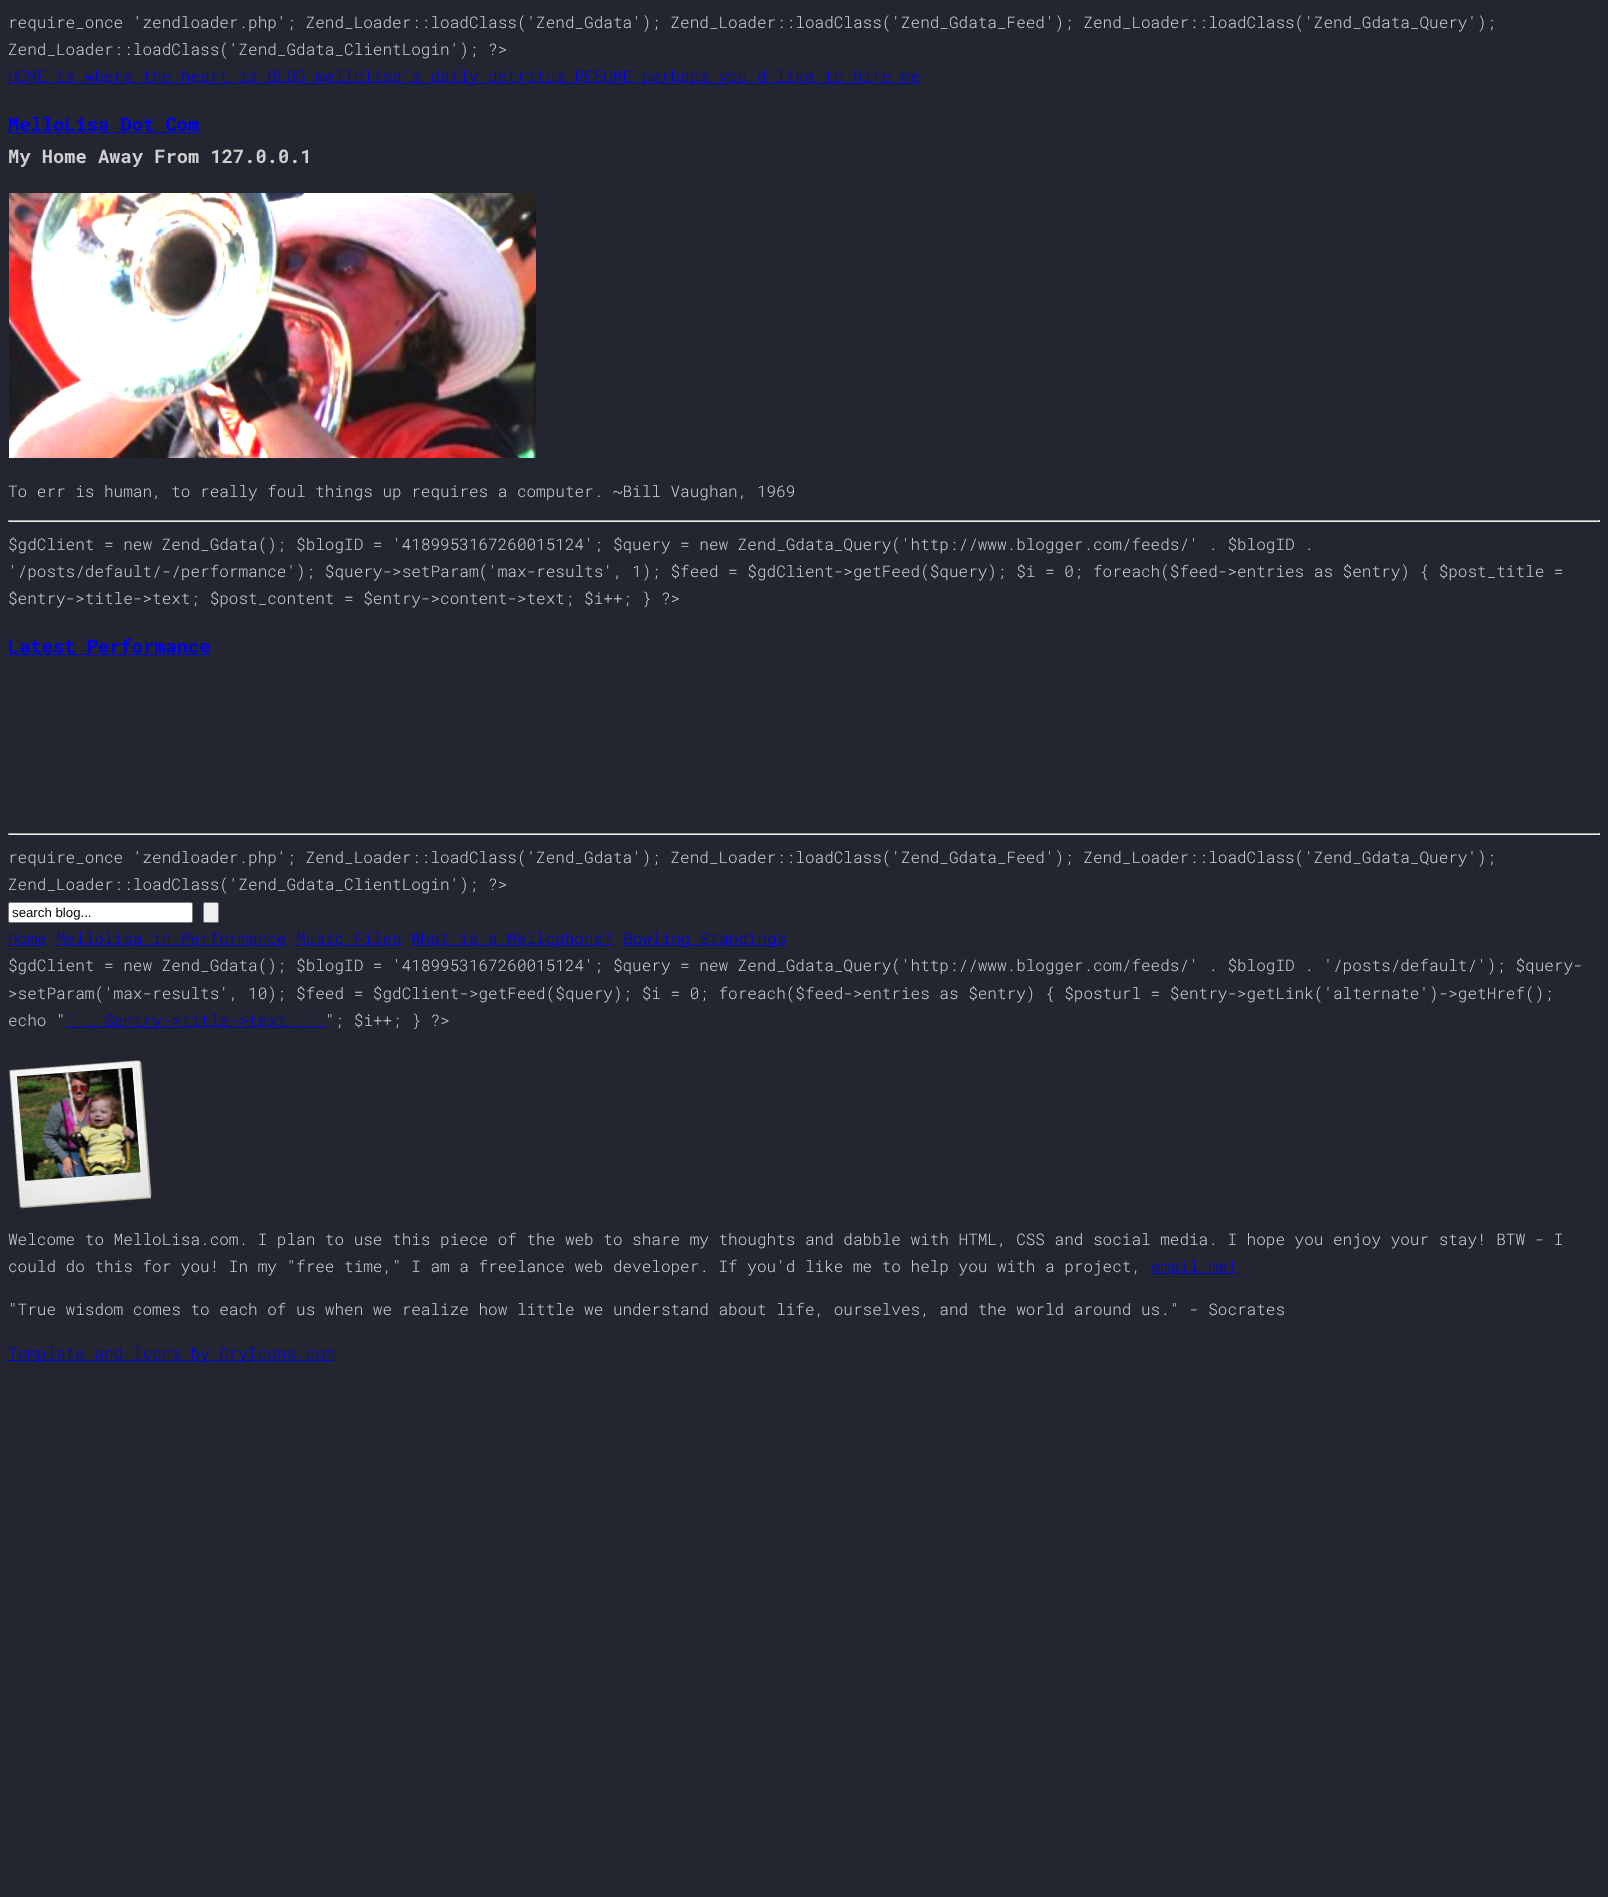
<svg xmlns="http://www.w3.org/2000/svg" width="1608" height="1897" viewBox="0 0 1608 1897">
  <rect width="100%" height="100%" fill="#232531"/>
  <text x="8" y="28" font-family="Roboto Mono" font-size="16" font-weight="300" fill="#cfcfd1">require_once 'zendloader.php'; Zend_Loader::loadClass('Zend_Gdata'); Zend_Loader::loadClass('Zend_Gdata_Feed'); Zend_Loader::loadClass('Zend_Gdata_Query');</text>
  <text x="8" y="55" font-family="Roboto Mono" font-size="16" font-weight="300" fill="#cfcfd1">Zend_Loader::loadClass('Zend_Gdata_ClientLogin'); ?&gt;</text>
  <rect x="8" y="83" width="912" height="1" fill="#0000ee"/>
  <text x="8" y="82" font-family="Roboto Mono" font-size="16" font-weight="300" fill="#0000ee">HOME is where the heart is BLOG mellolisa's daily detritus RESUME perhaps you'd like to hire me</text>
  <text x="8" y="131" font-family="Roboto Mono" font-size="18.75" font-weight="bold" fill="#0000ee">MelloLisa Dot Com</text>
  <rect x="8" y="132" width="191" height="1" fill="#0000ee"/>
  <text x="8" y="163" font-family="Roboto Mono" font-size="18.75" font-weight="bold" fill="#cfcfd1">My Home Away From 127.0.0.1</text>
  <image x="9" y="193" width="527" height="265" href="img1.png"/>
  <text x="8" y="497" font-family="Roboto Mono" font-size="16" font-weight="300" fill="#cfcfd1">To err is human, to really foul things up requires a computer. ~Bill Vaughan, 1969</text>
  <rect x="8" y="520" width="1592" height="1" fill="#9f9f9f"/>
  <rect x="1599" y="520" width="1" height="2" fill="#eeeeee"/>
  <rect x="8" y="521" width="1592" height="1" fill="#eeeeee"/>
  <rect x="8" y="520" width="1" height="2" fill="#9f9f9f"/>
  <text x="8" y="550" font-family="Roboto Mono" font-size="16" font-weight="300" fill="#cfcfd1">$gdClient = new Zend_Gdata(); $blogID = '4189953167260015124'; $query = new Zend_Gdata_Query('http://www.blogger.com/feeds/' . $blogID .</text>
  <text x="8" y="577" font-family="Roboto Mono" font-size="16" font-weight="300" fill="#cfcfd1">'/posts/default/-/performance'); $query-&gt;setParam('max-results', 1); $feed = $gdClient-&gt;getFeed($query); $i = 0; foreach($feed-&gt;entries as $entry) { $post_title =</text>
  <text x="8" y="604" font-family="Roboto Mono" font-size="16" font-weight="300" fill="#cfcfd1">$entry-&gt;title-&gt;text; $post_content = $entry-&gt;content-&gt;text; $i++; } ?&gt;</text>
  <text x="8" y="653" font-family="Roboto Mono" font-size="18.75" font-weight="bold" fill="#0000ee">Latest Performance</text>
  <rect x="8" y="654" width="202" height="1" fill="#0000ee"/>
  <rect x="8" y="833" width="1592" height="1" fill="#9f9f9f"/>
  <rect x="1599" y="833" width="1" height="2" fill="#eeeeee"/>
  <rect x="8" y="834" width="1592" height="1" fill="#eeeeee"/>
  <rect x="8" y="833" width="1" height="2" fill="#9f9f9f"/>
  <text x="8" y="863" font-family="Roboto Mono" font-size="16" font-weight="300" fill="#cfcfd1">require_once 'zendloader.php'; Zend_Loader::loadClass('Zend_Gdata'); Zend_Loader::loadClass('Zend_Gdata_Feed'); Zend_Loader::loadClass('Zend_Gdata_Query');</text>
  <text x="8" y="890" font-family="Roboto Mono" font-size="16" font-weight="300" fill="#cfcfd1">Zend_Loader::loadClass('Zend_Gdata_ClientLogin'); ?&gt;</text>
  <rect x="8.5" y="902.5" width="184" height="20" rx="1.5" fill="#ffffff" stroke="#767676"/>
  <text x="12" y="917" font-family="Liberation Sans" font-size="13.25" fill="#000000">search blog...</text>
  <rect x="203.5" y="902.5" width="15" height="20" rx="1.5" fill="#efefef" stroke="#767676"/>
  <text x="8" y="944" font-family="Roboto Mono" font-size="16" font-weight="300" fill="#0000ee">Home Mellolisa in Performance Music Files</text>
  <rect x="8" y="945" width="38" height="1" fill="#0000ee"/>
  <rect x="411" y="945" width="202" height="1" fill="#0000ee"/>
  <text x="411" y="944" font-family="Roboto Mono" font-size="16" font-weight="300" fill="#0000ee">What is a Mellophone?</text>
  <rect x="623" y="945" width="163" height="1" fill="#0000ee"/>
  <text x="623" y="944" font-family="Roboto Mono" font-size="16" font-weight="300" fill="#0000ee">Bowling Standings</text>
  <rect x="56" y="945" width="230" height="1" fill="#0000ee"/>
  <rect x="296" y="945" width="106" height="1" fill="#0000ee"/>
  <text x="8" y="971" font-family="Roboto Mono" font-size="16" font-weight="300" fill="#cfcfd1">$gdClient = new Zend_Gdata(); $blogID = '4189953167260015124'; $query = new Zend_Gdata_Query('http://www.blogger.com/feeds/' . $blogID . '/posts/default/'); $query-</text>
  <text x="8" y="999" font-family="Roboto Mono" font-size="16" font-weight="300" fill="#cfcfd1">&gt;setParam('max-results', 10); $feed = $gdClient-&gt;getFeed($query); $i = 0; foreach($feed-&gt;entries as $entry) { $posturl = $entry-&gt;getLink('alternate')-&gt;getHref();</text>
  <text x="8" y="1026" font-family="Roboto Mono" font-size="16" font-weight="300" fill="#cfcfd1">echo "</text>
  <rect x="66" y="1027" width="259" height="1" fill="#0000ee"/>
  <text x="66" y="1026" font-family="Roboto Mono" font-size="16" font-weight="300" fill="#0000ee">" . $entry-&gt;title-&gt;text . "</text>
  <text x="325" y="1026" font-family="Roboto Mono" font-size="16" font-weight="300" fill="#cfcfd1">"; $i++; } ?&gt;</text>
  <image x="9" y="1060" width="143" height="149" href="img2.png"/>
  <text x="8" y="1245" font-family="Roboto Mono" font-size="16" font-weight="300" fill="#cfcfd1">Welcome to MelloLisa.com. I plan to use this piece of the web to share my thoughts and dabble with HTML, CSS and social media. I hope you enjoy your stay! BTW - I</text>
  <text x="8" y="1272" font-family="Roboto Mono" font-size="16" font-weight="300" fill="#cfcfd1">could do this for you! In my "free time," I am a freelance web developer. If you'd like me to help you with a project,</text>
  <text x="1151" y="1272" font-family="Roboto Mono" font-size="16" font-weight="300" fill="#0000ee">email me!</text>
  <rect x="1151" y="1273" width="86" height="1" fill="#0000ee"/>
  <text x="8" y="1315" font-family="Roboto Mono" font-size="16" font-weight="300" fill="#cfcfd1">"True wisdom comes to each of us when we realize how little we understand about life, ourselves, and the world around us." - Socrates</text>
  <rect x="8" y="1360" width="326" height="1" fill="#0000ee"/>
  <text x="8" y="1359" font-family="Roboto Mono" font-size="16" font-weight="300" fill="#0000ee">Template and Icons by DryIcons.com</text>
</svg>
